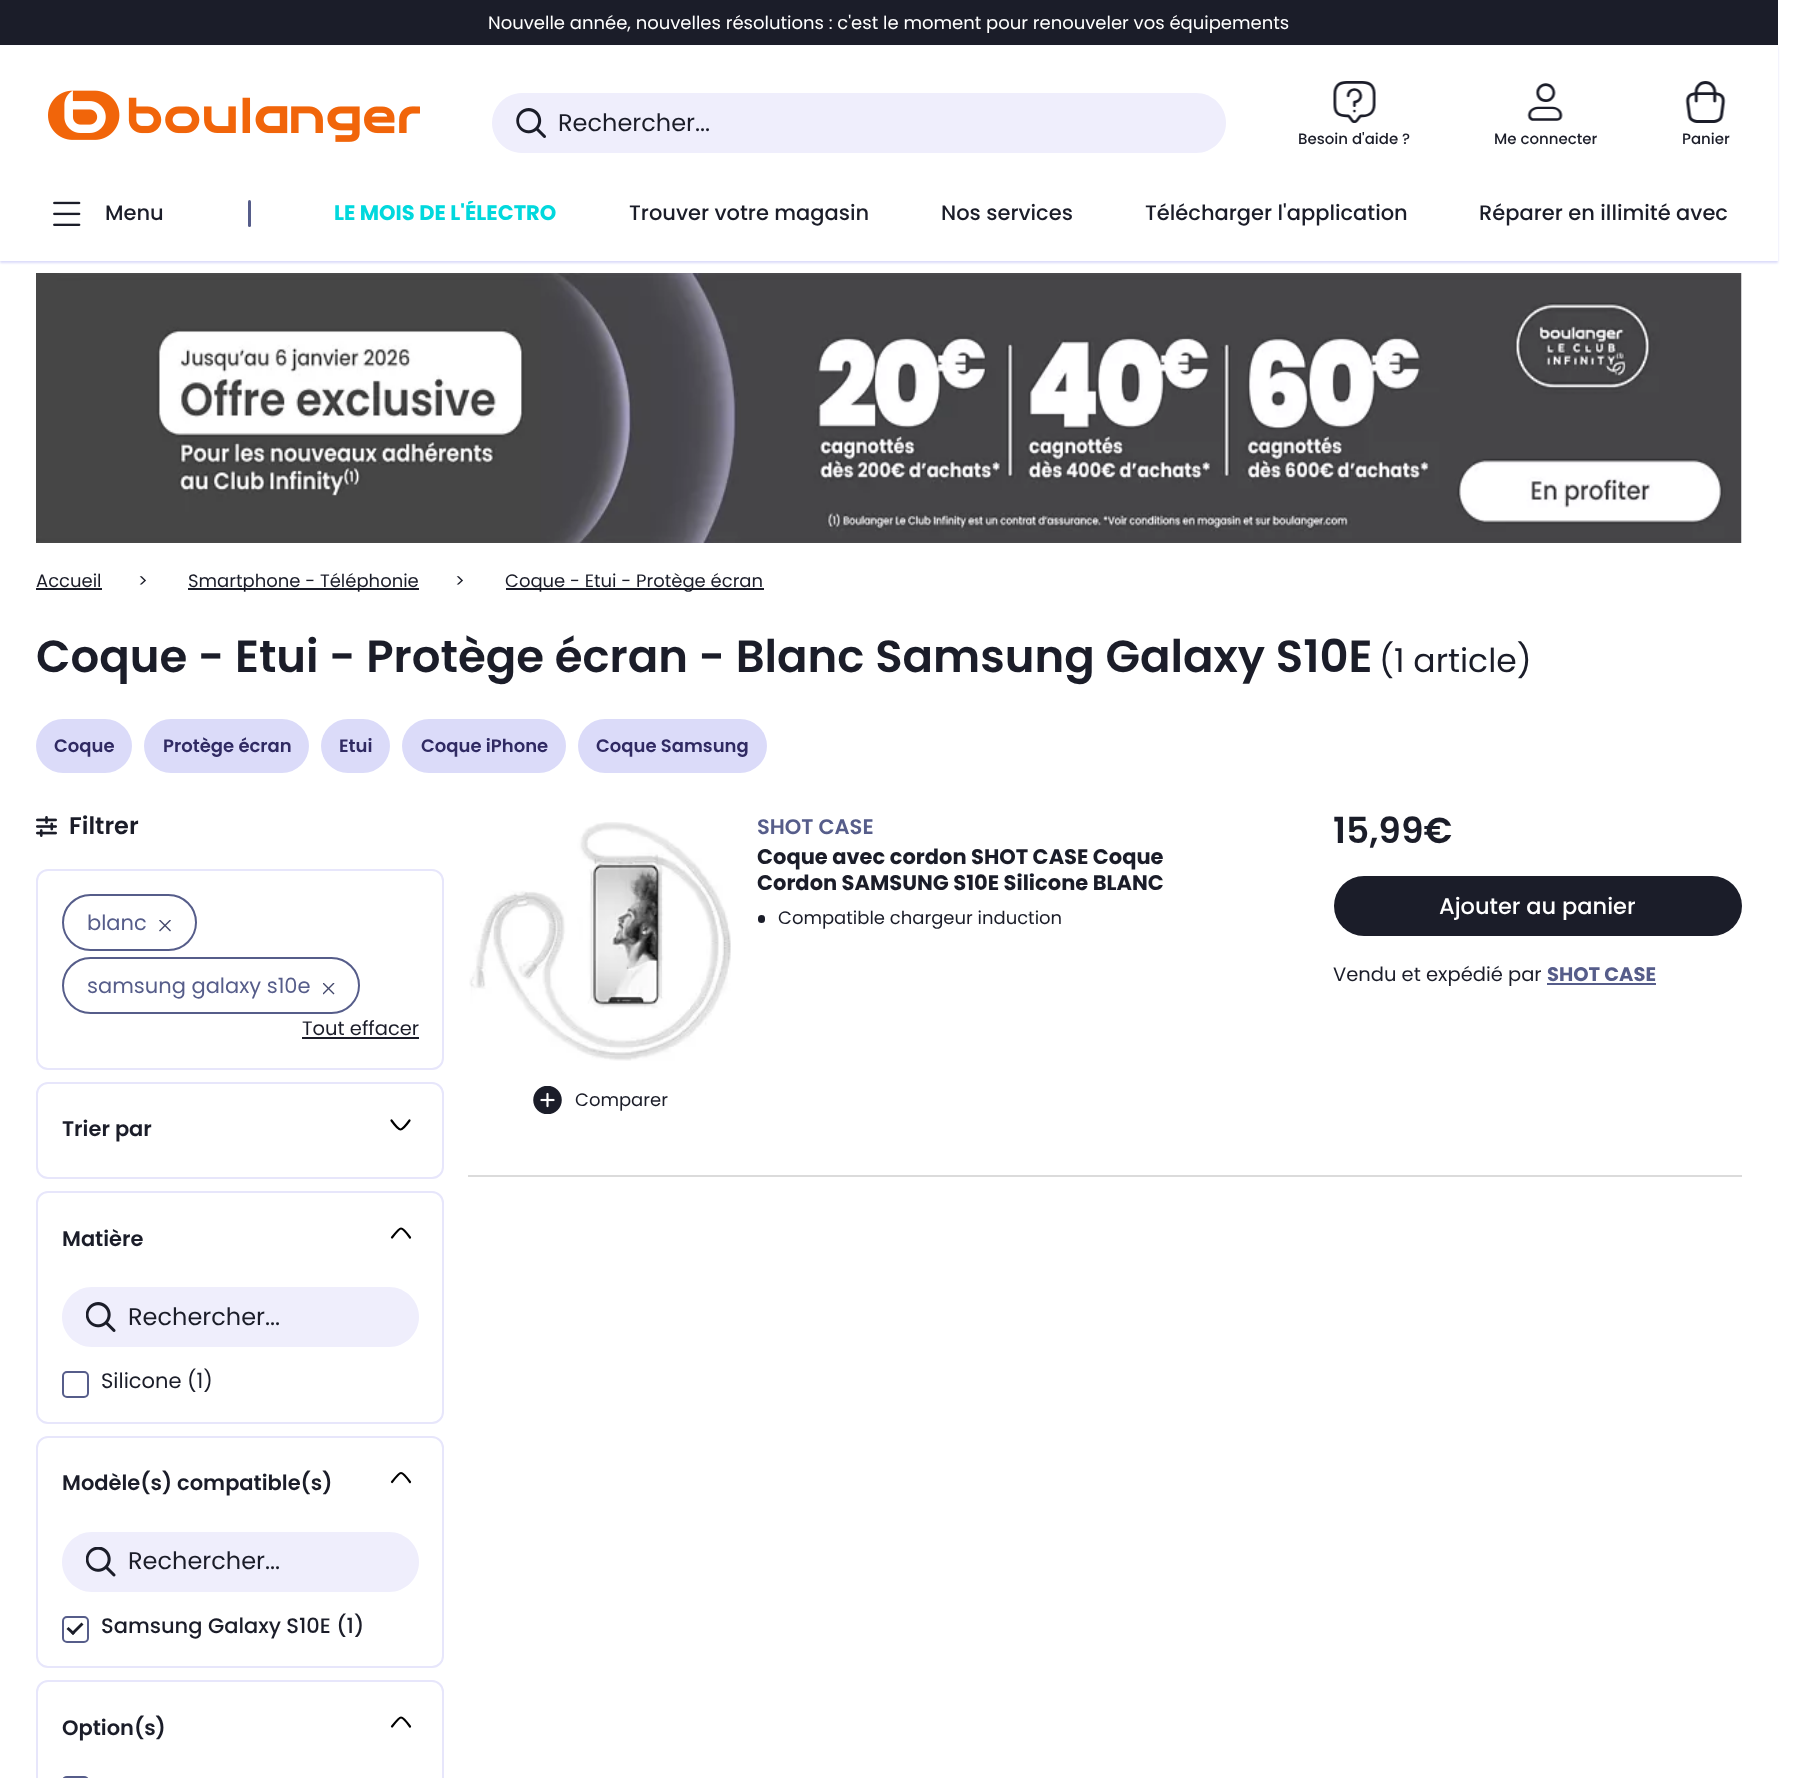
<svg xmlns="http://www.w3.org/2000/svg" width="1804" height="1778" viewBox="0 0 1804 1778">
  <defs>
    <clipPath id="clip1"><rect x="488" y="12" width="802" height="21"/></clipPath>
    <filter id="blur1" x="-50%" y="-200%" width="200%" height="500%"><feGaussianBlur stdDeviation="1"/></filter>
    <clipPath id="clip2"><rect x="335" y="201" width="222" height="26"/></clipPath>
  </defs>
  <rect width="100%" height="100%" fill="#ffffff"/>
  <rect x="0" y="0" width="1778" height="45" fill="#1b1d29"/>
  <g clip-path="url(#clip1)">
    <text x="488" y="29" font-family="Poppins" font-size="18" fill="#ffffff">Nouvelle année, nouvelles résolutions : c'est le moment pour renouveler vos équipements</text>
  </g>
  <rect x="0" y="47" width="1778" height="216" fill="#dbdbf9" filter="url(#blur1)"/>
  <rect x="0" y="46" width="1778" height="215" fill="#ffffff"/>
  <image x="48" y="90" width="372" height="52" href="img1.png"/>
  <path d="M522 93H558V153H522C505.5 153 492 139.5 492 123C492 106.5 505.5 93 522 93Z" fill="#efeefc"/>
  <image x="516" y="108" width="30" height="30" href="img2.png"/>
  <path d="M558 93H1196C1212.5 93 1226 106.5 1226 123C1226 139.5 1212.5 153 1196 153H558Z" fill="#efeefc"/>
  <text x="558" y="131" font-family="Poppins" font-size="24" fill="#1b1d29">Rechercher...</text>
  <image x="1333" y="81" width="43" height="42" href="img3.png"/>
  <text x="1298" y="144" font-family="Poppins" font-size="15" font-weight="500" fill="#1b1d29">Besoin d'aide ?</text>
  <image x="1527" y="83" width="36" height="38" href="img4.png"/>
  <text x="1494" y="144" font-family="Poppins" font-size="15" font-weight="500" fill="#1b1d29">Me connecter</text>
  <image x="1685" y="81" width="41" height="42" href="img5.png"/>
  <text x="1682" y="144" font-family="Poppins" font-size="15" font-weight="500" fill="#1b1d29">Panier</text>
  <image x="53" y="201" width="28" height="25" href="img6.png"/>
  <text x="105" y="220" font-family="Poppins" font-size="21" font-weight="500" fill="#1b1d29">Menu</text>
  <rect x="248" y="200" width="3" height="27" rx="1.5" fill="#565d8a"/>
  <g clip-path="url(#clip2)">
    <text x="334" y="220" font-family="Poppins" font-size="21" font-weight="bold" fill="#01d8dd">LE MOIS DE L'ÉLECTRO</text>
  </g>
  <text x="629" y="220" font-family="Poppins" font-size="21" font-weight="500" fill="#1b1d29">Trouver votre magasin</text>
  <text x="941" y="220" font-family="Poppins" font-size="21" font-weight="500" fill="#1b1d29">Nos services</text>
  <text x="1145" y="220" font-family="Poppins" font-size="21" font-weight="500" fill="#1b1d29">Télécharger l'application</text>
  <text x="1479" y="220" font-family="Poppins" font-size="21" font-weight="500" fill="#1b1d29">Réparer en illimité avec</text>
  <image x="36" y="273" width="1706" height="270" href="img7.png"/>
  <text x="36" y="587" font-family="Poppins" font-size="18" fill="#1b1d29">Accueil</text>
  <rect x="36" y="588" width="66" height="2" fill="#1b1d29"/>
  <text x="138" y="587" font-family="Poppins" font-size="18" fill="#1b1d29">&gt;</text>
  <rect x="188" y="588" width="231" height="2" fill="#1b1d29"/>
  <text x="188" y="587" font-family="Poppins" font-size="18" fill="#1b1d29">Smartphone - Téléphonie</text>
  <text x="455" y="587" font-family="Poppins" font-size="18" fill="#1b1d29">&gt;</text>
  <rect x="506" y="588" width="258" height="2" fill="#1b1d29"/>
  <text x="505" y="587" font-family="Poppins" font-size="18" fill="#1b1d29">Coque - Etui - Protège écran</text>
  <text x="36" y="672" font-family="Poppins" font-size="45" font-weight="600" fill="#1b1d29">Coque - Etui - Protège écran - Blanc Samsung Galaxy S10E</text>
  <text x="1379" y="672" font-family="Poppins" font-size="33" fill="#1b1d29">(1 article)</text>
  <rect x="36" y="719" width="96" height="54" rx="27" fill="#dbdbf9"/>
  <text x="54" y="752" font-family="Poppins" font-size="18" font-weight="600" fill="#302a63">Coque</text>
  <rect x="144" y="719" width="165" height="54" rx="27" fill="#dbdbf9"/>
  <text x="163" y="752" font-family="Poppins" font-size="18" font-weight="600" fill="#302a63">Protège écran</text>
  <rect x="321" y="719" width="69" height="54" rx="27" fill="#dbdbf9"/>
  <text x="339" y="752" font-family="Poppins" font-size="18" font-weight="600" fill="#302a63">Etui</text>
  <rect x="402" y="719" width="164" height="54" rx="27" fill="#dbdbf9"/>
  <text x="421" y="752" font-family="Poppins" font-size="18" font-weight="600" fill="#302a63">Coque iPhone</text>
  <rect x="578" y="719" width="189" height="54" rx="27" fill="#dbdbf9"/>
  <text x="596" y="752" font-family="Poppins" font-size="18" font-weight="600" fill="#302a63">Coque Samsung</text>
  <image x="36" y="816" width="21" height="21" href="img8.png"/>
  <text x="69" y="834" font-family="Poppins" font-size="24" font-weight="600" fill="#1b1d29">Filtrer</text>
  <rect x="37" y="870" width="406" height="199" rx="11" fill="none" stroke="#e7e6fb" stroke-width="2"/>
  <rect x="63" y="895" width="133" height="55" rx="27.5" fill="none" stroke="#565d8a" stroke-width="2"/>
  <text x="87" y="930" font-family="Poppins" font-size="21" fill="#565d8a">blanc</text>
  <image x="159" y="920" width="12" height="12" href="img9.png"/>
  <rect x="63" y="958" width="296" height="55" rx="27.5" fill="none" stroke="#565d8a" stroke-width="2"/>
  <text x="87" y="993" font-family="Poppins" font-size="21" fill="#565d8a">samsung galaxy s10e</text>
  <image x="323" y="983" width="12" height="12" href="img10.png"/>
  <text x="302" y="1035" font-family="Poppins" font-size="19.5" fill="#1b1d29">Tout effacer</text>
  <rect x="302" y="1037" width="117" height="2" fill="#1b1d29"/>
  <rect x="37" y="1083" width="406" height="95" rx="11" fill="none" stroke="#e7e6fb" stroke-width="2"/>
  <text x="62" y="1136" font-family="Poppins" font-size="21" font-weight="600" fill="#1b1d29">Trier par</text>
  <path d="M391.5 1120.5C391.5 1120.5 398 1129.5 400.5 1129.5C403 1129.5 409.5 1120.5 409.5 1120.5" fill="none" stroke="#000000" stroke-width="2.2" stroke-linecap="round" stroke-linejoin="round"/>
  <rect x="37" y="1192" width="406" height="231" rx="11" fill="none" stroke="#e7e6fb" stroke-width="2"/>
  <text x="62" y="1246" font-family="Poppins" font-size="21" font-weight="600" fill="#1b1d29">Matière</text>
  <path d="M410 1237.5C410 1237.5 403.5 1228.5 401 1228.5C399 1228.5 392 1237.5 392 1237.5" fill="none" stroke="#000000" stroke-width="2.2" stroke-linecap="round" stroke-linejoin="round"/>
  <path d="M92 1287H128V1347H92C75.5 1347 62 1333.5 62 1317C62 1300.5 75.5 1287 92 1287Z" fill="#efeefc"/>
  <image x="86" y="1302" width="30" height="30" href="img11.png"/>
  <path d="M128 1287H389C405.5 1287 419 1300.5 419 1317C419 1333.5 405.5 1347 389 1347H128Z" fill="#efeefc"/>
  <text x="128" y="1325" font-family="Poppins" font-size="24" fill="#1b1d29">Rechercher...</text>
  <rect x="63" y="1372" width="25" height="25" rx="4" fill="none" stroke="#565d8a" stroke-width="2"/>
  <text x="101" y="1388" font-family="Poppins" font-size="21" fill="#1b1d29">Silicone (1)</text>
  <rect x="37" y="1437" width="406" height="230" rx="11" fill="none" stroke="#e7e6fb" stroke-width="2"/>
  <text x="62" y="1490" font-family="Poppins" font-size="21" font-weight="600" fill="#1b1d29">Modèle(s) compatible(s)</text>
  <path d="M410 1482C410 1482 403.5 1473 401 1473C399 1473 392 1482 392 1482" fill="none" stroke="#000000" stroke-width="2.2" stroke-linecap="round" stroke-linejoin="round"/>
  <path d="M92 1532H128V1592H92C75.5 1592 62 1578.5 62 1562C62 1545.5 75.5 1532 92 1532Z" fill="#efeefc"/>
  <image x="86" y="1547" width="30" height="30" href="img12.png"/>
  <path d="M128 1532H389C405.5 1532 419 1545.5 419 1562C419 1578.5 405.5 1592 389 1592H128Z" fill="#efeefc"/>
  <text x="128" y="1569" font-family="Poppins" font-size="24" fill="#1b1d29">Rechercher...</text>
  <rect x="63" y="1617" width="25" height="25" rx="4" fill="none" stroke="#565d8a" stroke-width="2"/>
  <path d="M81.5 1622.5L83.5 1624.5L73 1635L71 1633Z" fill="#1b1d29"/>
  <path d="M68.5 1627L75 1633L73 1635L66.5 1629Z" fill="#1b1d29"/>
  <text x="101" y="1633" font-family="Poppins" font-size="21" font-weight="500" fill="#1b1d29">Samsung Galaxy S10E (1)</text>
  <rect x="37" y="1681" width="406" height="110" rx="11" fill="none" stroke="#e7e6fb" stroke-width="2"/>
  <text x="62" y="1735" font-family="Poppins" font-size="21" font-weight="600" fill="#1b1d29">Option(s)</text>
  <path d="M410 1726.5C410 1726.5 403.5 1717.5 401 1717.5C399 1717.5 392 1726.5 392 1726.5" fill="none" stroke="#000000" stroke-width="2.2" stroke-linecap="round" stroke-linejoin="round"/>
  <rect x="63" y="1777" width="25" height="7" rx="4" fill="none" stroke="#565d8a" stroke-width="2"/>
  <text x="757" y="834" font-family="Poppins" font-size="21" font-weight="600" fill="#565d8a">SHOT CASE</text>
  <text x="757" y="864" font-family="Poppins" font-size="21" font-weight="bold" fill="#1b1d29">Coque avec cordon SHOT CASE Coque</text>
  <text x="757" y="890" font-family="Poppins" font-size="21" font-weight="bold" fill="#1b1d29">Cordon SAMSUNG S10E Silicone BLANC</text>
  <rect x="758" y="915" width="7" height="8" rx="3.5" fill="#1b1d29"/>
  <text x="778" y="924" font-family="Poppins" font-size="18" fill="#1b1d29">Compatible chargeur induction</text>
  <text x="1333" y="843" font-family="Poppins" font-size="36" font-weight="600" fill="#1b1d29">15,99€</text>
  <rect x="1334" y="876" width="408" height="60" rx="30" fill="#1b1d29"/>
  <text x="1439" y="914" font-family="Poppins" font-size="22.5" font-weight="500" fill="#ffffff">Ajouter au panier</text>
  <text x="1333" y="981" font-family="Poppins" font-size="19.5" fill="#1b1d29">Vendu et expédié par</text>
  <text x="1547" y="981" font-family="Poppins" font-size="19.5" font-weight="bold" fill="#565d8a">SHOT CASE</text>
  <rect x="1547" y="983" width="109" height="2" fill="#565d8a"/>
  <image x="469" y="822" width="262" height="239" href="img13.png"/>
  <image x="533" y="1086" width="29" height="28" href="img14.png"/>
  <text x="575" y="1106" font-family="Poppins" font-size="18" fill="#1b1d29">Comparer</text>
  <rect x="468" y="1175" width="1274" height="2" fill="#dbdbdb"/>
</svg>
